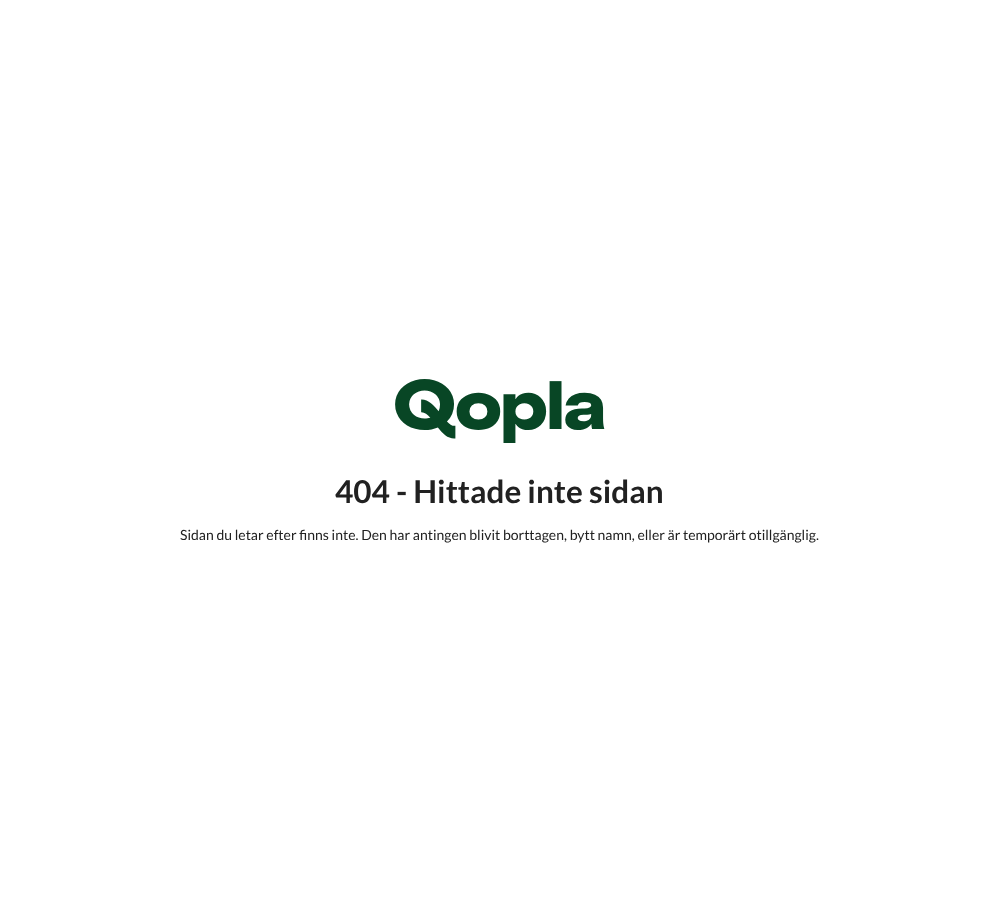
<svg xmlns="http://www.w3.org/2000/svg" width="999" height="906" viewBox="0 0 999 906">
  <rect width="100%" height="100%" fill="#ffffff"/>
  <text x="393" y="429" font-family="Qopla" font-size="70" font-weight="bold" fill="#084625">Qopla</text>
  <text x="335" y="503" font-family="Lato" font-size="31.5" font-weight="bold" fill="#212121">404 - Hittade inte sidan</text>
  <text x="180" y="540" font-family="Lato" font-size="14" fill="#212121">Sidan du letar efter finns inte. Den har antingen blivit borttagen, bytt namn, eller är temporärt otillgänglig.</text>
</svg>
